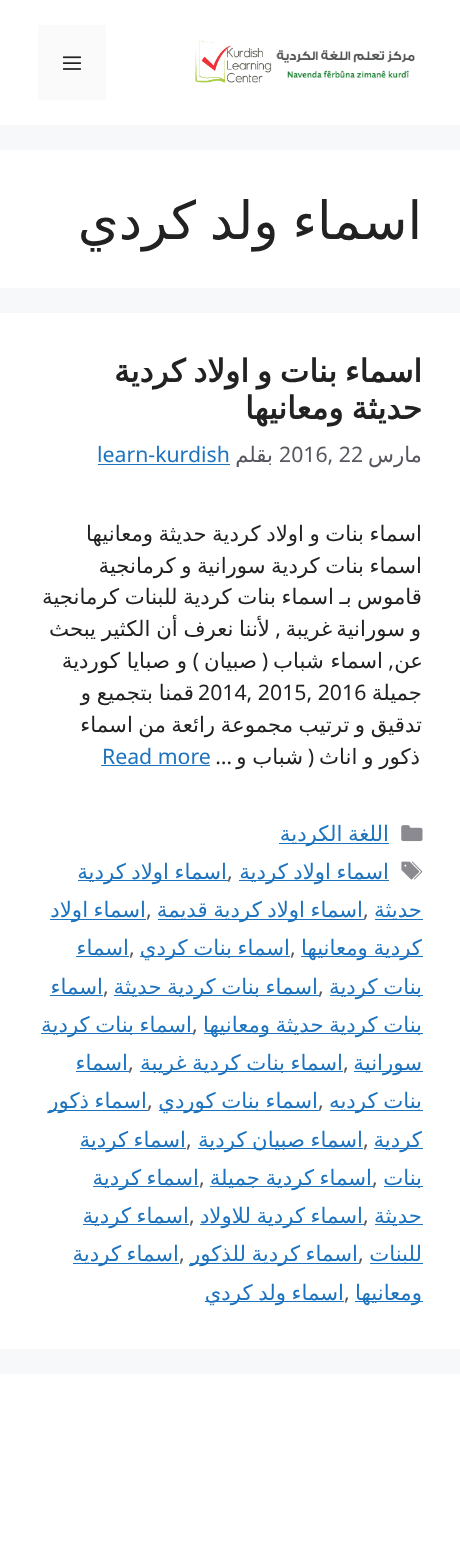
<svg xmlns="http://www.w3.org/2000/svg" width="460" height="1550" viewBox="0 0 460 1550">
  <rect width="100%" height="100%" fill="#f7f8f9"/>
  <rect x="0" y="0" width="460" height="125" fill="#ffffff"/>
  <image x="195" y="40" width="220" height="43" href="img1.png"/>
  <rect x="38" y="25" width="68" height="75" fill="#fafafa"/>
  <image x="63" y="56" width="18" height="14" href="img2.png"/>
  <rect x="0" y="150" width="460" height="138" fill="#ffffff"/>
  <text x="422" y="239" word-spacing="-3" font-family="DejaVu Sans" font-size="52.5" direction="rtl" fill="#222222">اسماء ولد كردي</text>
  <rect x="0" y="313" width="460" height="1036" fill="#ffffff"/>
  <text x="422" y="382" word-spacing="-2" font-family="DejaVu Sans" font-size="31.25" font-weight="bold" direction="rtl" fill="#222222">اسماء بنات و اولاد كردية</text>
  <text x="422" y="419" word-spacing="-2" font-family="DejaVu Sans" font-size="31.25" font-weight="bold" direction="rtl" fill="#222222">حديثة ومعانيها</text>
  <text x="422" y="462" font-family="DejaVu Sans" font-size="21.25" direction="rtl" fill="#575760">مارس</text>
  <text x="279" y="462" font-family="Noto Sans" font-size="21.25" fill="#575760">2016, 22</text>
  <text x="273" y="462" font-family="DejaVu Sans" font-size="21.25" direction="rtl" fill="#575760">بقلم</text>
  <text x="97" y="462" font-family="Noto Sans" font-size="21.25" fill="#1e73be">learn-kurdish</text>
  <rect x="98" y="464" width="132" height="1" fill="#1e73be"/>
  <text x="422" y="541" word-spacing="-1.25" font-family="DejaVu Sans" font-size="21.25" direction="rtl" fill="#222222">اسماء بنات و اولاد كردية حديثة ومعانيها</text>
  <text x="422" y="573" word-spacing="-1.25" font-family="DejaVu Sans" font-size="21.25" direction="rtl" fill="#222222">اسماء بنات كردية سورانية و كرمانجية</text>
  <text x="422" y="604" word-spacing="-1.25" font-family="DejaVu Sans" font-size="21.25" direction="rtl" fill="#222222">قاموس بـ اسماء بنات كردية للبنات كرمانجية</text>
  <text x="421" y="636" word-spacing="-1" font-family="DejaVu Sans" font-size="21.25" direction="rtl" fill="#222222">و سورانية</text>
  <text x="332" y="636" font-family="DejaVu Sans" font-size="21.25" direction="rtl" fill="#222222">غريبة</text>
  <text x="281" y="636" font-family="Noto Sans" font-size="21.25" direction="rtl" fill="#222222">,</text>
  <text x="270" y="636" word-spacing="-1" font-family="DejaVu Sans" font-size="21.25" direction="rtl" fill="#222222">لأننا نعرف أن الكثير يبحث</text>
  <text x="423" y="668" font-family="DejaVu Sans" font-size="21.25" direction="rtl" fill="#222222">عن</text>
  <text x="394" y="668" font-family="Noto Sans" font-size="21.25" direction="rtl" fill="#222222">,</text>
  <text x="383" y="668" font-family="DejaVu Sans" font-size="21.25" direction="rtl" fill="#222222">اسماء شباب</text>
  <text x="268" y="668" font-family="Noto Sans" font-size="21.25" direction="rtl" fill="#222222">(</text>
  <text x="257" y="668" font-family="DejaVu Sans" font-size="21.25" direction="rtl" fill="#222222">صبيان</text>
  <text x="199" y="668" font-family="Noto Sans" font-size="21.25" direction="rtl" fill="#222222">)</text>
  <text x="187" y="668" font-family="DejaVu Sans" font-size="21.25" direction="rtl" fill="#222222">و صبايا كوردية</text>
  <text x="422" y="700" font-family="DejaVu Sans" font-size="21.25" direction="rtl" fill="#222222">جميلة</text>
  <text x="198" y="700" font-family="Noto Sans" font-size="21.25" fill="#222222">2014, 2015, 2016</text>
  <text x="194" y="700" word-spacing="-1" font-family="DejaVu Sans" font-size="21.25" direction="rtl" fill="#222222">قمنا بتجميع و</text>
  <text x="422" y="732" word-spacing="-1.25" font-family="DejaVu Sans" font-size="21.25" direction="rtl" fill="#222222">تدقيق و ترتيب مجموعة رائعة من اسماء</text>
  <text x="420" y="764" word-spacing="-1" font-family="DejaVu Sans" font-size="21.25" direction="rtl" fill="#222222">ذكور و اناث</text>
  <text x="314" y="764" font-family="Noto Sans" font-size="21.25" direction="rtl" fill="#222222">(</text>
  <text x="303" y="764" word-spacing="-1" font-family="DejaVu Sans" font-size="21.25" direction="rtl" fill="#222222">شباب و</text>
  <text x="232" y="764" font-family="Noto Sans" font-size="21.25" direction="rtl" fill="#222222">…</text>
  <text x="102" y="764" font-family="Noto Sans" font-size="21.25" fill="#1e73be">Read more</text>
  <rect x="101" y="765" width="109" height="1" fill="#1e73be"/>
  <image x="401" y="825" width="22" height="17" href="img3.png"/>
  <rect x="279" y="843" width="110" height="1" fill="#1e73be"/>
  <text x="389" y="841" word-spacing="-1.25" font-family="DejaVu Sans" font-size="21.25" direction="rtl" fill="#1e73be">اللغة الكردية</text>
  <image x="401" y="861" width="22" height="19" href="img4.png"/>
  <rect x="239" y="880" width="150" height="1" fill="#1e73be"/>
  <text x="389" y="879" word-spacing="-1.25" font-family="DejaVu Sans" font-size="21.25" direction="rtl" fill="#1e73be">اسماء اولاد كردية</text>
  <text x="227" y="879" font-family="Noto Sans" font-size="21.25" fill="#575760">,</text>
  <rect x="78" y="880" width="150" height="1" fill="#1e73be"/>
  <text x="227" y="879" word-spacing="-1.25" font-family="DejaVu Sans" font-size="21.25" direction="rtl" fill="#1e73be">اسماء اولاد كردية</text>
  <rect x="375" y="919" width="48" height="1" fill="#1e73be"/>
  <text x="422" y="917" font-family="DejaVu Sans" font-size="21.25" direction="rtl" fill="#1e73be">حديثة</text>
  <text x="363" y="917" font-family="Noto Sans" font-size="21.25" fill="#575760">,</text>
  <rect x="158" y="919" width="206" height="1" fill="#1e73be"/>
  <text x="363" y="917" word-spacing="-1.25" font-family="DejaVu Sans" font-size="21.25" direction="rtl" fill="#1e73be">اسماء اولاد كردية قديمة</text>
  <text x="146" y="917" font-family="Noto Sans" font-size="21.25" fill="#575760">,</text>
  <rect x="50" y="919" width="96" height="1" fill="#1e73be"/>
  <text x="146" y="917" word-spacing="-1.25" font-family="DejaVu Sans" font-size="21.25" direction="rtl" fill="#1e73be">اسماء اولاد</text>
  <rect x="301" y="956" width="122" height="1" fill="#1e73be"/>
  <text x="422" y="955" word-spacing="-1.25" font-family="DejaVu Sans" font-size="21.25" direction="rtl" fill="#1e73be">كردية ومعانيها</text>
  <text x="290" y="955" font-family="Noto Sans" font-size="21.25" fill="#575760">,</text>
  <rect x="140" y="956" width="150" height="1" fill="#1e73be"/>
  <text x="290" y="955" word-spacing="-1.25" font-family="DejaVu Sans" font-size="21.25" direction="rtl" fill="#1e73be">اسماء بنات كردي</text>
  <text x="129" y="955" font-family="Noto Sans" font-size="21.25" fill="#575760">,</text>
  <text x="129" y="955" font-family="DejaVu Sans" font-size="21.25" direction="rtl" fill="#1e73be">اسماء</text>
  <rect x="76" y="956" width="53" height="1" fill="#1e73be"/>
  <rect x="330" y="995" width="93" height="1" fill="#1e73be"/>
  <text x="422" y="994" word-spacing="-1.25" font-family="DejaVu Sans" font-size="21.25" direction="rtl" fill="#1e73be">بنات كردية</text>
  <rect x="114" y="995" width="205" height="1" fill="#1e73be"/>
  <text x="318" y="994" font-family="Noto Sans" font-size="21.25" fill="#575760">,</text>
  <text x="318" y="994" word-spacing="-1.25" font-family="DejaVu Sans" font-size="21.25" direction="rtl" fill="#1e73be">اسماء بنات كردية حديثة</text>
  <text x="103" y="994" font-family="Noto Sans" font-size="21.25" fill="#575760">,</text>
  <text x="103" y="994" font-family="DejaVu Sans" font-size="21.25" direction="rtl" fill="#1e73be">اسماء</text>
  <rect x="50" y="995" width="53" height="1" fill="#1e73be"/>
  <rect x="204" y="1033" width="219" height="1" fill="#1e73be"/>
  <text x="422" y="1032" word-spacing="-1.25" font-family="DejaVu Sans" font-size="21.25" direction="rtl" fill="#1e73be">بنات كردية حديثة ومعانيها</text>
  <text x="192" y="1032" font-family="Noto Sans" font-size="21.25" fill="#575760">,</text>
  <rect x="41" y="1033" width="152" height="1" fill="#1e73be"/>
  <text x="192" y="1032" word-spacing="-1.25" font-family="DejaVu Sans" font-size="21.25" direction="rtl" fill="#1e73be">اسماء بنات كردية</text>
  <rect x="354" y="1071" width="69" height="1" fill="#1e73be"/>
  <text x="422" y="1070" font-family="DejaVu Sans" font-size="21.25" direction="rtl" fill="#1e73be">سورانية</text>
  <rect x="140" y="1071" width="203" height="1" fill="#1e73be"/>
  <text x="343" y="1070" font-family="Noto Sans" font-size="21.25" fill="#575760">,</text>
  <text x="343" y="1070" word-spacing="-1.25" font-family="DejaVu Sans" font-size="21.25" direction="rtl" fill="#1e73be">اسماء بنات كردية غريبة</text>
  <text x="128" y="1070" font-family="Noto Sans" font-size="21.25" fill="#575760">,</text>
  <text x="128" y="1070" font-family="DejaVu Sans" font-size="21.25" direction="rtl" fill="#1e73be">اسماء</text>
  <rect x="76" y="1071" width="53" height="1" fill="#1e73be"/>
  <rect x="330" y="1110" width="93" height="1" fill="#1e73be"/>
  <text x="422" y="1108" word-spacing="-1.25" font-family="DejaVu Sans" font-size="21.25" direction="rtl" fill="#1e73be">بنات كرديه</text>
  <text x="318" y="1108" font-family="Noto Sans" font-size="21.25" fill="#575760">,</text>
  <rect x="159" y="1110" width="160" height="1" fill="#1e73be"/>
  <text x="318" y="1108" word-spacing="-1.25" font-family="DejaVu Sans" font-size="21.25" direction="rtl" fill="#1e73be">اسماء بنات كوردي</text>
  <text x="147" y="1108" font-family="Noto Sans" font-size="21.25" fill="#575760">,</text>
  <rect x="49" y="1110" width="99" height="1" fill="#1e73be"/>
  <text x="147" y="1108" word-spacing="-1.25" font-family="DejaVu Sans" font-size="21.25" direction="rtl" fill="#1e73be">اسماء ذكور</text>
  <rect x="374" y="1148" width="49" height="1" fill="#1e73be"/>
  <text x="422" y="1147" font-family="DejaVu Sans" font-size="21.25" direction="rtl" fill="#1e73be">كردية</text>
  <text x="363" y="1147" font-family="Noto Sans" font-size="21.25" fill="#575760">,</text>
  <rect x="198" y="1148" width="165" height="1" fill="#1e73be"/>
  <text x="363" y="1147" word-spacing="-1.25" font-family="DejaVu Sans" font-size="21.25" direction="rtl" fill="#1e73be">اسماء صبيان كردية</text>
  <text x="186" y="1147" font-family="Noto Sans" font-size="21.25" fill="#575760">,</text>
  <rect x="80" y="1148" width="106" height="1" fill="#1e73be"/>
  <text x="186" y="1147" word-spacing="-1.25" font-family="DejaVu Sans" font-size="21.25" direction="rtl" fill="#1e73be">اسماء كردية</text>
  <rect x="384" y="1186" width="39" height="1" fill="#1e73be"/>
  <text x="422" y="1185" font-family="DejaVu Sans" font-size="21.25" direction="rtl" fill="#1e73be">بنات</text>
  <text x="372" y="1185" font-family="Noto Sans" font-size="21.25" fill="#575760">,</text>
  <rect x="210" y="1186" width="163" height="1" fill="#1e73be"/>
  <text x="372" y="1185" word-spacing="-1.25" font-family="DejaVu Sans" font-size="21.25" direction="rtl" fill="#1e73be">اسماء كردية جميلة</text>
  <text x="199" y="1185" font-family="Noto Sans" font-size="21.25" fill="#575760">,</text>
  <rect x="93" y="1186" width="106" height="1" fill="#1e73be"/>
  <text x="199" y="1185" word-spacing="-1.25" font-family="DejaVu Sans" font-size="21.25" direction="rtl" fill="#1e73be">اسماء كردية</text>
  <rect x="375" y="1224" width="48" height="1" fill="#1e73be"/>
  <text x="422" y="1223" font-family="DejaVu Sans" font-size="21.25" direction="rtl" fill="#1e73be">حديثة</text>
  <text x="363" y="1223" font-family="Noto Sans" font-size="21.25" fill="#575760">,</text>
  <rect x="200" y="1224" width="164" height="1" fill="#1e73be"/>
  <text x="363" y="1223" word-spacing="-1.25" font-family="DejaVu Sans" font-size="21.25" direction="rtl" fill="#1e73be">اسماء كردية للاولاد</text>
  <text x="189" y="1223" font-family="Noto Sans" font-size="21.25" fill="#575760">,</text>
  <rect x="83" y="1224" width="106" height="1" fill="#1e73be"/>
  <text x="189" y="1223" word-spacing="-1.25" font-family="DejaVu Sans" font-size="21.25" direction="rtl" fill="#1e73be">اسماء كردية</text>
  <rect x="370" y="1263" width="53" height="1" fill="#1e73be"/>
  <text x="422" y="1261" font-family="DejaVu Sans" font-size="21.25" direction="rtl" fill="#1e73be">للبنات</text>
  <text x="358" y="1261" font-family="Noto Sans" font-size="21.25" fill="#575760">,</text>
  <rect x="190" y="1263" width="169" height="1" fill="#1e73be"/>
  <text x="358" y="1261" word-spacing="-1.25" font-family="DejaVu Sans" font-size="21.25" direction="rtl" fill="#1e73be">اسماء كردية للذكور</text>
  <text x="179" y="1261" font-family="Noto Sans" font-size="21.25" fill="#575760">,</text>
  <rect x="73" y="1263" width="106" height="1" fill="#1e73be"/>
  <text x="179" y="1261" word-spacing="-1.25" font-family="DejaVu Sans" font-size="21.25" direction="rtl" fill="#1e73be">اسماء كردية</text>
  <rect x="355" y="1301" width="68" height="1" fill="#1e73be"/>
  <text x="422" y="1300" font-family="DejaVu Sans" font-size="21.25" direction="rtl" fill="#1e73be">ومعانيها</text>
  <text x="344" y="1300" font-family="Noto Sans" font-size="21.25" fill="#575760">,</text>
  <rect x="205" y="1301" width="139" height="1" fill="#1e73be"/>
  <text x="344" y="1300" word-spacing="-1.25" font-family="DejaVu Sans" font-size="21.25" direction="rtl" fill="#1e73be">اسماء ولد كردي</text>
  <rect x="0" y="1374" width="460" height="176" fill="#ffffff"/>
</svg>
